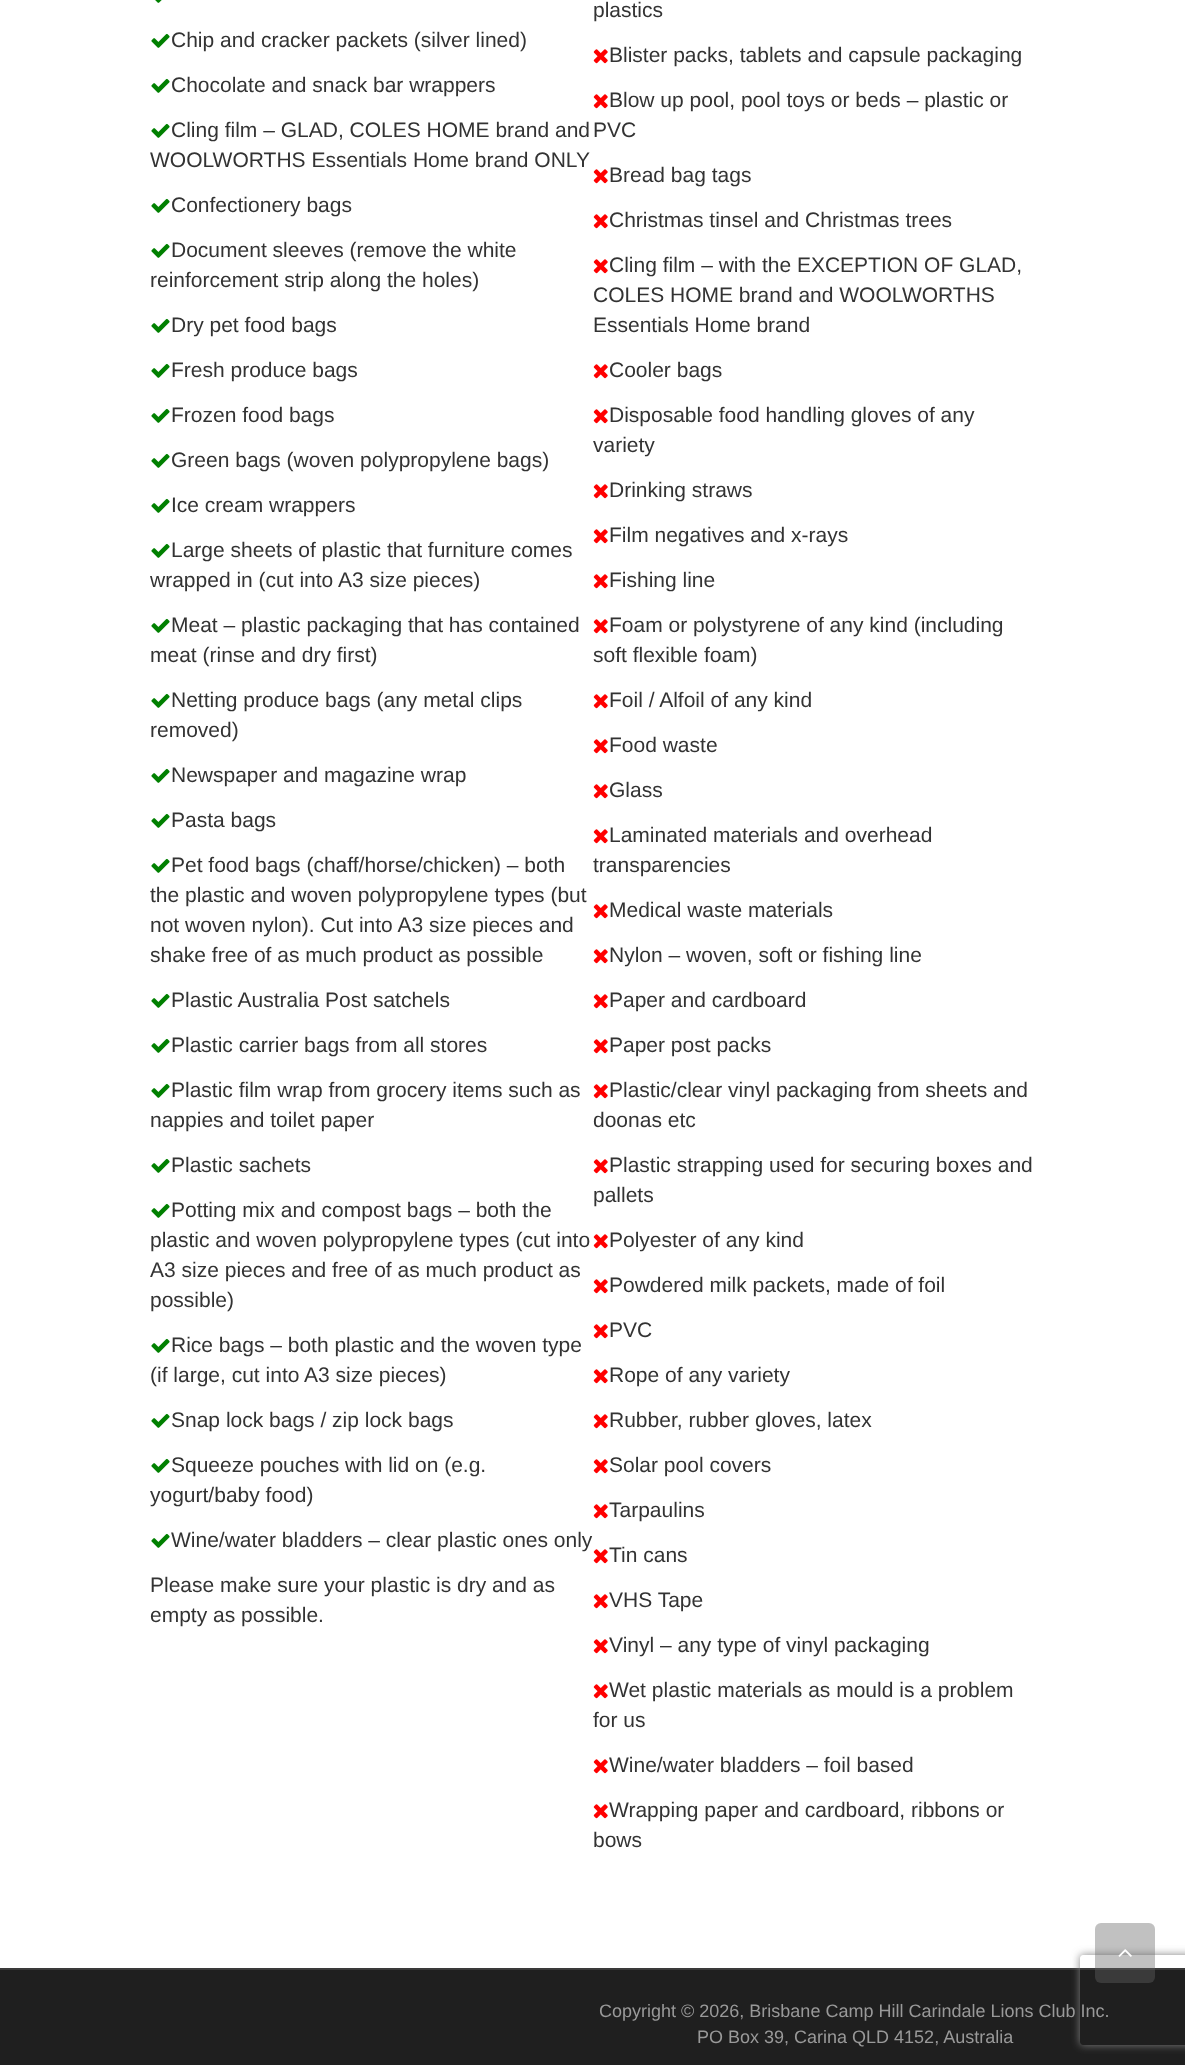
<svg xmlns="http://www.w3.org/2000/svg" width="1185" height="2065" viewBox="0 0 1185 2065">
  <defs>
    <clipPath id="clip1"><path d="M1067 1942H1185V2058H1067ZM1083 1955H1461C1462.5 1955 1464 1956.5 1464 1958V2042C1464 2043.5 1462.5 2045 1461 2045H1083C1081.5 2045 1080 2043.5 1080 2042V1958C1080 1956.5 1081.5 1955 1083 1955Z" clip-rule="evenodd"/></clipPath>
    <filter id="blur1" x="-50%" y="-200%" width="200%" height="500%"><feGaussianBlur stdDeviation="4"/></filter>
  </defs>
  <rect width="100%" height="100%" fill="#ffffff"/>
  <image x="155" y="0" width="7" height="3" href="img1.png"/>
  <image x="151" y="33" width="19" height="15" href="img2.png"/>
  <text x="171" y="47" font-family="Liberation Sans" font-size="21" fill="#333333">Chip and cracker packets (silver lined)</text>
  <image x="151" y="78" width="19" height="15" href="img2.png"/>
  <text x="171" y="92" font-family="Liberation Sans" font-size="21" fill="#333333">Chocolate and snack bar wrappers</text>
  <image x="151" y="123" width="19" height="15" href="img2.png"/>
  <text x="171" y="137" font-family="Liberation Sans" font-size="21" fill="#333333">Cling film – GLAD, COLES HOME brand and</text>
  <text x="150" y="167" font-family="Liberation Sans" font-size="21" fill="#333333">WOOLWORTHS Essentials Home brand ONLY</text>
  <image x="151" y="198" width="19" height="15" href="img2.png"/>
  <text x="171" y="212" font-family="Liberation Sans" font-size="21" fill="#333333">Confectionery bags</text>
  <image x="151" y="243" width="19" height="15" href="img2.png"/>
  <text x="171" y="257" font-family="Liberation Sans" font-size="21" fill="#333333">Document sleeves (remove the white</text>
  <text x="150" y="287" font-family="Liberation Sans" font-size="21" fill="#333333">reinforcement strip along the holes)</text>
  <image x="151" y="318" width="19" height="15" href="img2.png"/>
  <text x="171" y="332" font-family="Liberation Sans" font-size="21" fill="#333333">Dry pet food bags</text>
  <image x="151" y="363" width="19" height="15" href="img2.png"/>
  <text x="171" y="377" font-family="Liberation Sans" font-size="21" fill="#333333">Fresh produce bags</text>
  <image x="151" y="408" width="19" height="15" href="img2.png"/>
  <text x="171" y="422" font-family="Liberation Sans" font-size="21" fill="#333333">Frozen food bags</text>
  <image x="151" y="453" width="19" height="15" href="img2.png"/>
  <text x="171" y="467" font-family="Liberation Sans" font-size="21" fill="#333333">Green bags (woven polypropylene bags)</text>
  <image x="151" y="498" width="19" height="15" href="img2.png"/>
  <text x="171" y="512" font-family="Liberation Sans" font-size="21" fill="#333333">Ice cream wrappers</text>
  <image x="151" y="543" width="19" height="15" href="img2.png"/>
  <text x="171" y="557" font-family="Liberation Sans" font-size="21" fill="#333333">Large sheets of plastic that furniture comes</text>
  <text x="150" y="587" font-family="Liberation Sans" font-size="21" fill="#333333">wrapped in (cut into A3 size pieces)</text>
  <image x="151" y="618" width="19" height="15" href="img2.png"/>
  <text x="171" y="632" font-family="Liberation Sans" font-size="21" fill="#333333">Meat – plastic packaging that has contained</text>
  <text x="150" y="662" font-family="Liberation Sans" font-size="21" fill="#333333">meat (rinse and dry first)</text>
  <image x="151" y="693" width="19" height="15" href="img2.png"/>
  <text x="171" y="707" font-family="Liberation Sans" font-size="21" fill="#333333">Netting produce bags (any metal clips</text>
  <text x="150" y="737" font-family="Liberation Sans" font-size="21" fill="#333333">removed)</text>
  <image x="151" y="768" width="19" height="15" href="img2.png"/>
  <text x="171" y="782" font-family="Liberation Sans" font-size="21" fill="#333333">Newspaper and magazine wrap</text>
  <image x="151" y="813" width="19" height="15" href="img2.png"/>
  <text x="171" y="827" font-family="Liberation Sans" font-size="21" fill="#333333">Pasta bags</text>
  <image x="151" y="858" width="19" height="15" href="img2.png"/>
  <text x="171" y="872" font-family="Liberation Sans" font-size="21" fill="#333333">Pet food bags (chaff/horse/chicken) – both</text>
  <text x="150" y="902" font-family="Liberation Sans" font-size="21" fill="#333333">the plastic and woven polypropylene types (but</text>
  <text x="150" y="932" font-family="Liberation Sans" font-size="21" fill="#333333">not woven nylon). Cut into A3 size pieces and</text>
  <text x="150" y="962" font-family="Liberation Sans" font-size="21" fill="#333333">shake free of as much product as possible</text>
  <image x="151" y="993" width="19" height="15" href="img2.png"/>
  <text x="171" y="1007" font-family="Liberation Sans" font-size="21" fill="#333333">Plastic Australia Post satchels</text>
  <image x="151" y="1038" width="19" height="15" href="img2.png"/>
  <text x="171" y="1052" font-family="Liberation Sans" font-size="21" fill="#333333">Plastic carrier bags from all stores</text>
  <image x="151" y="1083" width="19" height="15" href="img2.png"/>
  <text x="171" y="1097" font-family="Liberation Sans" font-size="21" fill="#333333">Plastic film wrap from grocery items such as</text>
  <text x="150" y="1127" font-family="Liberation Sans" font-size="21" fill="#333333">nappies and toilet paper</text>
  <image x="151" y="1158" width="19" height="15" href="img2.png"/>
  <text x="171" y="1172" font-family="Liberation Sans" font-size="21" fill="#333333">Plastic sachets</text>
  <image x="151" y="1203" width="19" height="15" href="img2.png"/>
  <text x="171" y="1217" font-family="Liberation Sans" font-size="21" fill="#333333">Potting mix and compost bags – both the</text>
  <text x="150" y="1247" font-family="Liberation Sans" font-size="21" fill="#333333">plastic and woven polypropylene types (cut into</text>
  <text x="150" y="1277" font-family="Liberation Sans" font-size="21" fill="#333333">A3 size pieces and free of as much product as</text>
  <text x="150" y="1307" font-family="Liberation Sans" font-size="21" fill="#333333">possible)</text>
  <image x="151" y="1338" width="19" height="15" href="img2.png"/>
  <text x="171" y="1352" font-family="Liberation Sans" font-size="21" fill="#333333">Rice bags – both plastic and the woven type</text>
  <text x="150" y="1382" font-family="Liberation Sans" font-size="21" fill="#333333">(if large, cut into A3 size pieces)</text>
  <image x="151" y="1413" width="19" height="15" href="img2.png"/>
  <text x="171" y="1427" font-family="Liberation Sans" font-size="21" fill="#333333">Snap lock bags / zip lock bags</text>
  <image x="151" y="1458" width="19" height="15" href="img2.png"/>
  <text x="171" y="1472" font-family="Liberation Sans" font-size="21" fill="#333333">Squeeze pouches with lid on (e.g.</text>
  <text x="150" y="1502" font-family="Liberation Sans" font-size="21" fill="#333333">yogurt/baby food)</text>
  <image x="151" y="1533" width="19" height="15" href="img2.png"/>
  <text x="171" y="1547" font-family="Liberation Sans" font-size="21" fill="#333333">Wine/water bladders – clear plastic ones only</text>
  <text x="150" y="1592" font-family="Liberation Sans" font-size="21" fill="#333333">Please make sure your plastic is dry and as</text>
  <text x="150" y="1622" font-family="Liberation Sans" font-size="21" fill="#333333">empty as possible.</text>
  <text x="593" y="17" font-family="Liberation Sans" font-size="21" fill="#333333">plastics</text>
  <image x="593" y="49" width="15" height="15" href="img3.png"/>
  <text x="609" y="62" font-family="Liberation Sans" font-size="21" fill="#333333">Blister packs, tablets and capsule packaging</text>
  <image x="593" y="94" width="15" height="15" href="img3.png"/>
  <text x="609" y="107" font-family="Liberation Sans" font-size="21" fill="#333333">Blow up pool, pool toys or beds – plastic or</text>
  <text x="593" y="137" font-family="Liberation Sans" font-size="21" fill="#333333">PVC</text>
  <image x="593" y="169" width="15" height="15" href="img3.png"/>
  <text x="609" y="182" font-family="Liberation Sans" font-size="21" fill="#333333">Bread bag tags</text>
  <image x="593" y="214" width="15" height="15" href="img3.png"/>
  <text x="609" y="227" font-family="Liberation Sans" font-size="21" fill="#333333">Christmas tinsel and Christmas trees</text>
  <image x="593" y="259" width="15" height="15" href="img3.png"/>
  <text x="609" y="272" font-family="Liberation Sans" font-size="21" fill="#333333">Cling film – with the EXCEPTION OF GLAD,</text>
  <text x="593" y="302" font-family="Liberation Sans" font-size="21" fill="#333333">COLES HOME brand and WOOLWORTHS</text>
  <text x="593" y="332" font-family="Liberation Sans" font-size="21" fill="#333333">Essentials Home brand</text>
  <image x="593" y="364" width="15" height="15" href="img3.png"/>
  <text x="609" y="377" font-family="Liberation Sans" font-size="21" fill="#333333">Cooler bags</text>
  <image x="593" y="409" width="15" height="15" href="img3.png"/>
  <text x="609" y="422" font-family="Liberation Sans" font-size="21" fill="#333333">Disposable food handling gloves of any</text>
  <text x="593" y="452" font-family="Liberation Sans" font-size="21" fill="#333333">variety</text>
  <image x="593" y="484" width="15" height="15" href="img3.png"/>
  <text x="609" y="497" font-family="Liberation Sans" font-size="21" fill="#333333">Drinking straws</text>
  <image x="593" y="529" width="15" height="15" href="img3.png"/>
  <text x="609" y="542" font-family="Liberation Sans" font-size="21" fill="#333333">Film negatives and x-rays</text>
  <image x="593" y="574" width="15" height="15" href="img3.png"/>
  <text x="609" y="587" font-family="Liberation Sans" font-size="21" fill="#333333">Fishing line</text>
  <image x="593" y="619" width="15" height="15" href="img3.png"/>
  <text x="609" y="632" font-family="Liberation Sans" font-size="21" fill="#333333">Foam or polystyrene of any kind (including</text>
  <text x="593" y="662" font-family="Liberation Sans" font-size="21" fill="#333333">soft flexible foam)</text>
  <image x="593" y="694" width="15" height="15" href="img3.png"/>
  <text x="609" y="707" font-family="Liberation Sans" font-size="21" fill="#333333">Foil / Alfoil of any kind</text>
  <image x="593" y="739" width="15" height="15" href="img3.png"/>
  <text x="609" y="752" font-family="Liberation Sans" font-size="21" fill="#333333">Food waste</text>
  <image x="593" y="784" width="15" height="15" href="img3.png"/>
  <text x="609" y="797" font-family="Liberation Sans" font-size="21" fill="#333333">Glass</text>
  <image x="593" y="829" width="15" height="15" href="img3.png"/>
  <text x="609" y="842" font-family="Liberation Sans" font-size="21" fill="#333333">Laminated materials and overhead</text>
  <text x="593" y="872" font-family="Liberation Sans" font-size="21" fill="#333333">transparencies</text>
  <image x="593" y="904" width="15" height="15" href="img3.png"/>
  <text x="609" y="917" font-family="Liberation Sans" font-size="21" fill="#333333">Medical waste materials</text>
  <image x="593" y="949" width="15" height="15" href="img3.png"/>
  <text x="609" y="962" font-family="Liberation Sans" font-size="21" fill="#333333">Nylon – woven, soft or fishing line</text>
  <image x="593" y="994" width="15" height="15" href="img3.png"/>
  <text x="609" y="1007" font-family="Liberation Sans" font-size="21" fill="#333333">Paper and cardboard</text>
  <image x="593" y="1039" width="15" height="15" href="img3.png"/>
  <text x="609" y="1052" font-family="Liberation Sans" font-size="21" fill="#333333">Paper post packs</text>
  <image x="593" y="1084" width="15" height="15" href="img3.png"/>
  <text x="609" y="1097" font-family="Liberation Sans" font-size="21" fill="#333333">Plastic/clear vinyl packaging from sheets and</text>
  <text x="593" y="1127" font-family="Liberation Sans" font-size="21" fill="#333333">doonas etc</text>
  <image x="593" y="1159" width="15" height="15" href="img3.png"/>
  <text x="609" y="1172" font-family="Liberation Sans" font-size="21" fill="#333333">Plastic strapping used for securing boxes and</text>
  <text x="593" y="1202" font-family="Liberation Sans" font-size="21" fill="#333333">pallets</text>
  <image x="593" y="1234" width="15" height="15" href="img3.png"/>
  <text x="609" y="1247" font-family="Liberation Sans" font-size="21" fill="#333333">Polyester of any kind</text>
  <image x="593" y="1279" width="15" height="15" href="img3.png"/>
  <text x="609" y="1292" font-family="Liberation Sans" font-size="21" fill="#333333">Powdered milk packets, made of foil</text>
  <image x="593" y="1324" width="15" height="15" href="img3.png"/>
  <text x="609" y="1337" font-family="Liberation Sans" font-size="21" fill="#333333">PVC</text>
  <image x="593" y="1369" width="15" height="15" href="img3.png"/>
  <text x="609" y="1382" font-family="Liberation Sans" font-size="21" fill="#333333">Rope of any variety</text>
  <image x="593" y="1414" width="15" height="15" href="img3.png"/>
  <text x="609" y="1427" font-family="Liberation Sans" font-size="21" fill="#333333">Rubber, rubber gloves, latex</text>
  <image x="593" y="1459" width="15" height="15" href="img3.png"/>
  <text x="609" y="1472" font-family="Liberation Sans" font-size="21" fill="#333333">Solar pool covers</text>
  <image x="593" y="1504" width="15" height="15" href="img3.png"/>
  <text x="609" y="1517" font-family="Liberation Sans" font-size="21" fill="#333333">Tarpaulins</text>
  <image x="593" y="1549" width="15" height="15" href="img3.png"/>
  <text x="609" y="1562" font-family="Liberation Sans" font-size="21" fill="#333333">Tin cans</text>
  <image x="593" y="1594" width="15" height="15" href="img3.png"/>
  <text x="609" y="1607" font-family="Liberation Sans" font-size="21" fill="#333333">VHS Tape</text>
  <image x="593" y="1639" width="15" height="15" href="img3.png"/>
  <text x="609" y="1652" font-family="Liberation Sans" font-size="21" fill="#333333">Vinyl – any type of vinyl packaging</text>
  <image x="593" y="1684" width="15" height="15" href="img3.png"/>
  <text x="609" y="1697" font-family="Liberation Sans" font-size="21" fill="#333333">Wet plastic materials as mould is a problem</text>
  <text x="593" y="1727" font-family="Liberation Sans" font-size="21" fill="#333333">for us</text>
  <image x="593" y="1759" width="15" height="15" href="img3.png"/>
  <text x="609" y="1772" font-family="Liberation Sans" font-size="21" fill="#333333">Wine/water bladders – foil based</text>
  <image x="593" y="1804" width="15" height="15" href="img3.png"/>
  <text x="609" y="1817" font-family="Liberation Sans" font-size="21" fill="#333333">Wrapping paper and cardboard, ribbons or</text>
  <text x="593" y="1847" font-family="Liberation Sans" font-size="21" fill="#333333">bows</text>
  <rect x="0" y="1970" width="1185" height="95" fill="#1f1f1f"/>
  <rect x="0" y="1968" width="1185" height="2" fill="#3a3a3a"/>
  <g clip-path="url(#clip1)">
    <rect x="1080" y="1955" width="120" height="90" rx="3" fill="#808080" filter="url(#blur1)"/>
  </g>
  <rect x="1095" y="1923" width="60" height="60" rx="6" fill="#646464" fill-opacity="0.4"/>
  <image x="1118" y="1949" width="14" height="8" href="img4.png"/>
  <text x="599" y="2017" font-family="Liberation Sans" font-size="18" fill="#999999">Copyright © 2026, Brisbane Camp Hill Carindale Lions Club Inc.</text>
  <text x="697" y="2043" font-family="Liberation Sans" font-size="18" fill="#999999">PO Box 39, Carina QLD 4152, Australia</text>
</svg>
